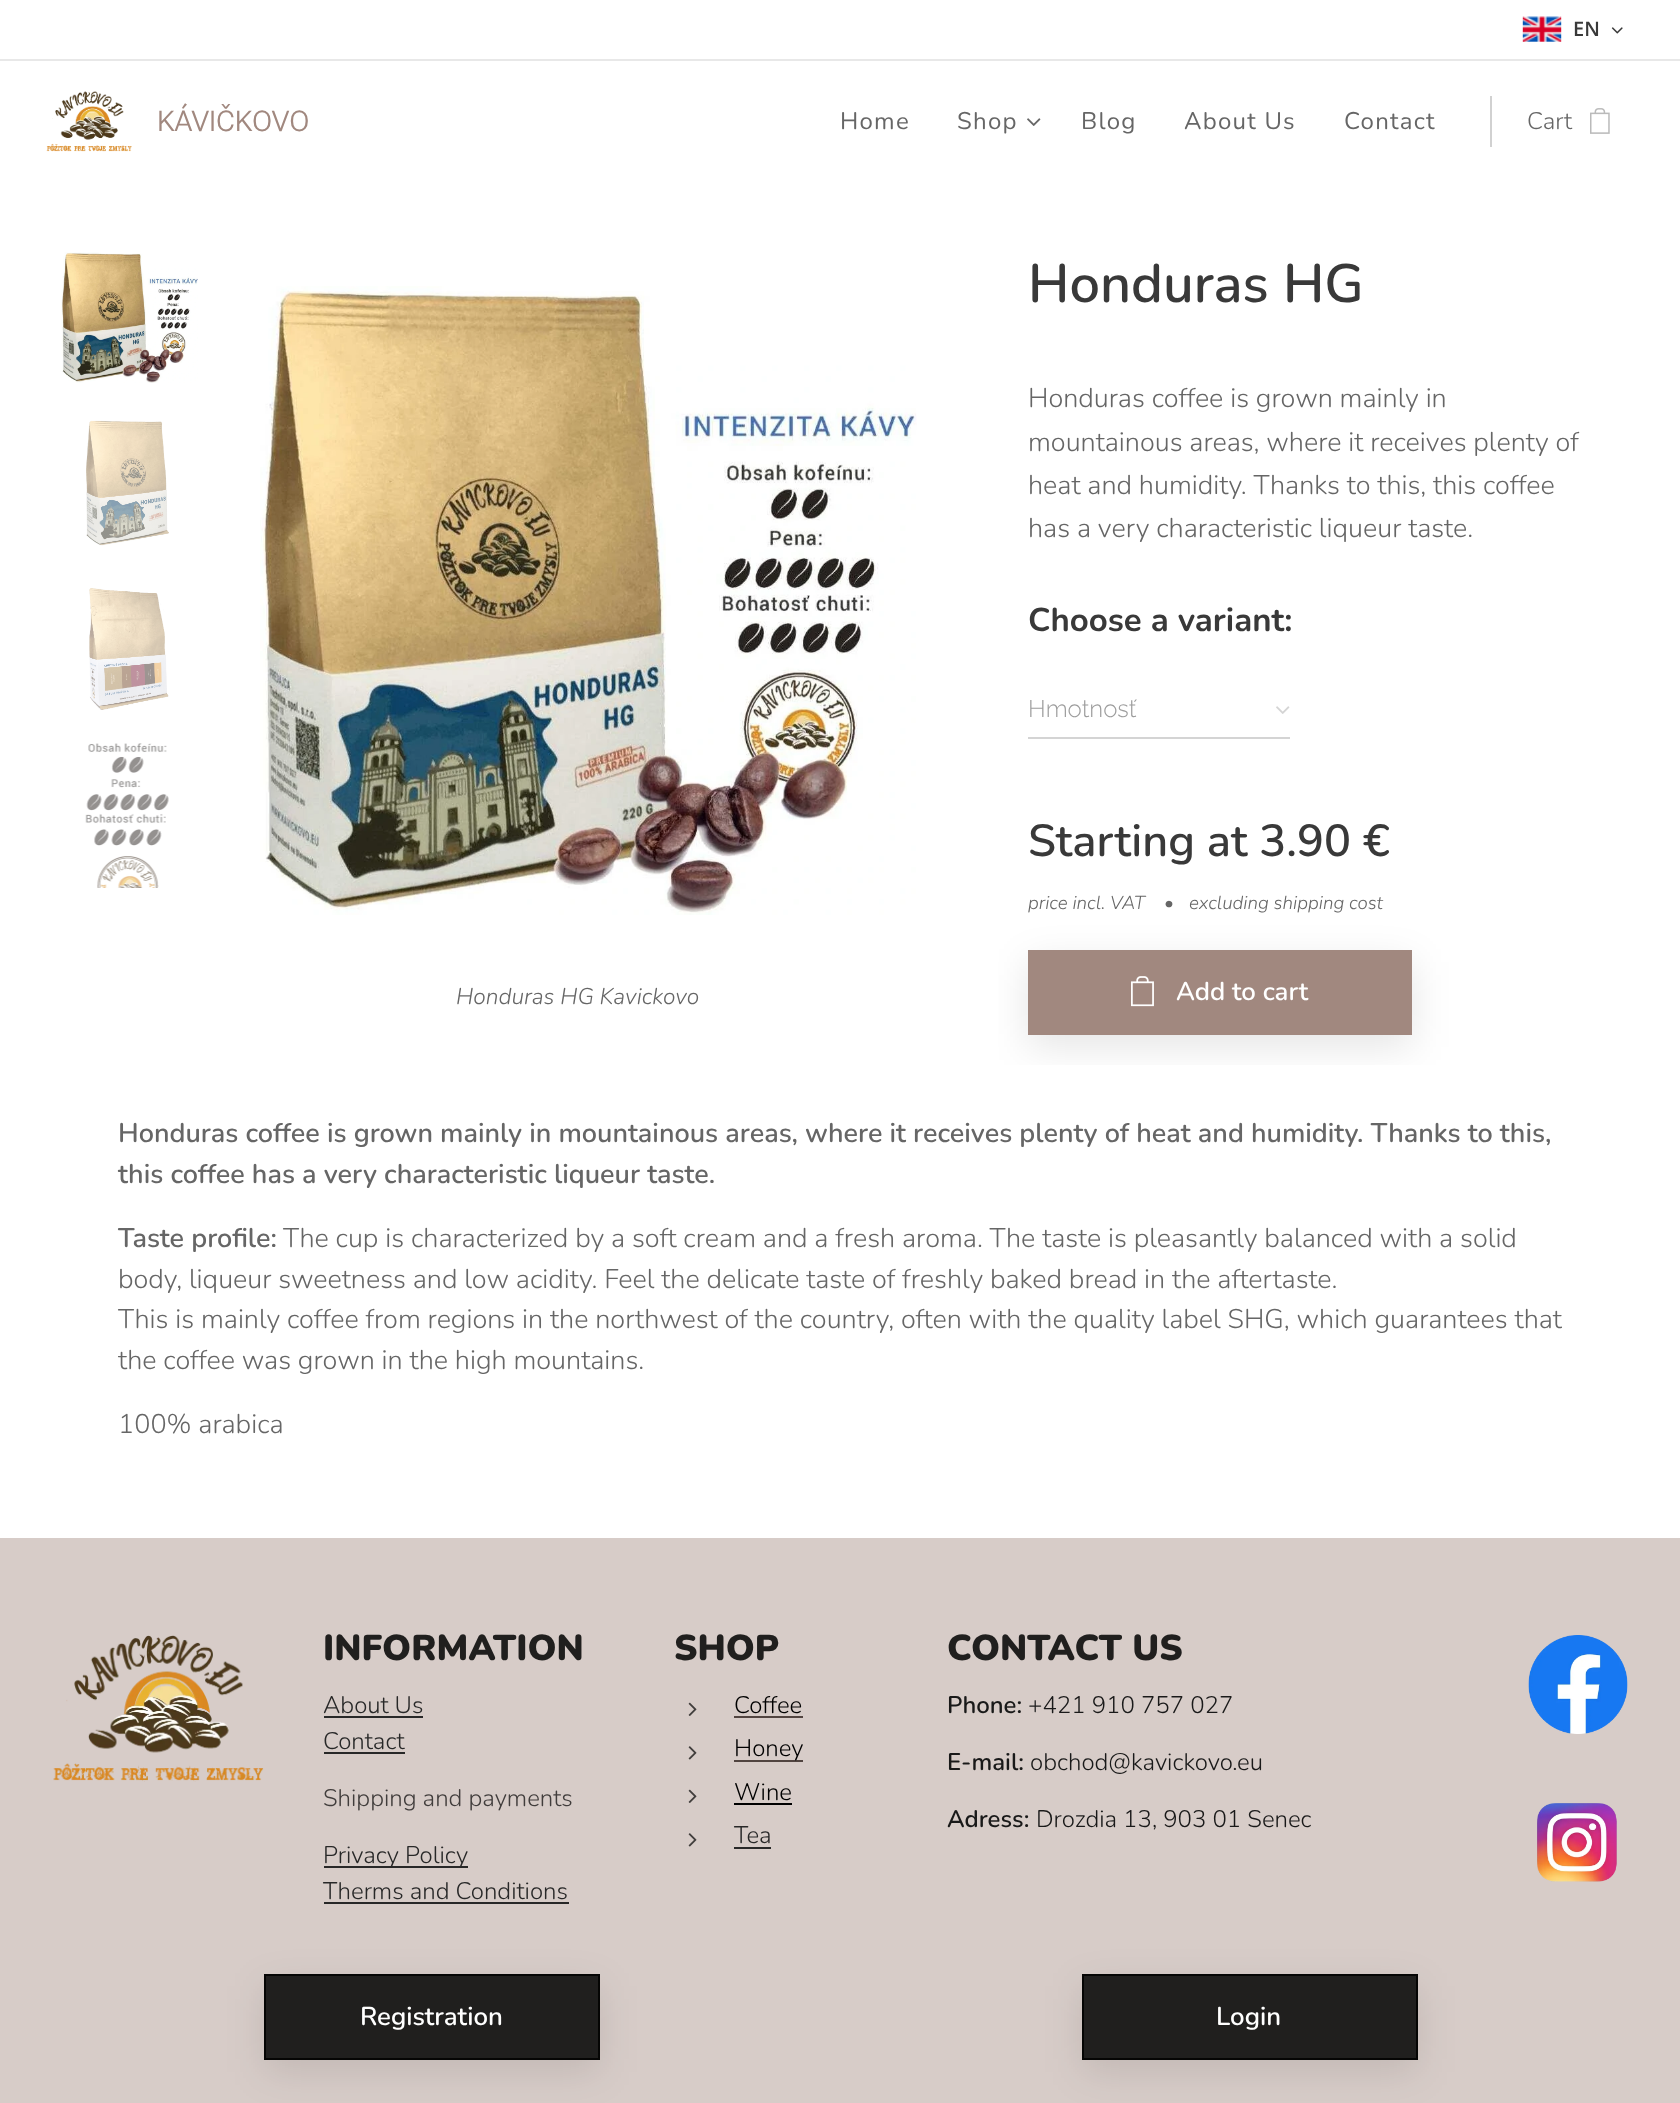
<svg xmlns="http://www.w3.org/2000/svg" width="1680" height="2103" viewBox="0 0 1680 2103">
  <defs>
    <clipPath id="clip1"><rect x="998" y="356" width="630" height="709"/></clipPath>
    <filter id="blur1" x="-50%" y="-200%" width="200%" height="500%"><feGaussianBlur stdDeviation="19"/></filter>
    <clipPath id="clip2"><path d="M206 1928H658V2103H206ZM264 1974H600V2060H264Z" clip-rule="evenodd"/></clipPath>
    <clipPath id="clip3"><path d="M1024 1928H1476V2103H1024ZM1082 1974H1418V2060H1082Z" clip-rule="evenodd"/></clipPath>
  </defs>
  <rect width="100%" height="100%" fill="#ffffff"/>
  <image x="1522" y="16" width="40" height="26" href="img1.png"/>
  <text x="1573" y="36" font-family="Open Sans" font-size="20" font-weight="600" fill="#393939">EN</text>
  <image x="1611" y="27" width="12" height="7" href="img2.png"/>
  <rect x="0" y="59" width="1680" height="2" fill="#e8e8e8"/>
  <image x="46" y="91" width="86" height="61" href="img3.png"/>
  <text x="157" y="131" font-family="Roboto Flex" font-size="28.5" font-weight="300" fill="#a1887f">KÁVIČKOVO</text>
  <text x="840" y="129" font-family="Nunito" font-size="24" letter-spacing="1.25" fill="#666666">Home</text>
  <text x="957" y="129" font-family="Nunito" font-size="24" letter-spacing="1.25" fill="#666666">Shop</text>
  <image x="1027" y="118" width="14" height="8" href="img4.png"/>
  <text x="1081" y="129" font-family="Nunito" font-size="24" letter-spacing="1.25" fill="#666666">Blog</text>
  <text x="1184" y="129" font-family="Nunito" font-size="24" letter-spacing="1.25" fill="#666666">About Us</text>
  <text x="1344" y="129" font-family="Nunito" font-size="24" letter-spacing="1.25" fill="#666666">Contact</text>
  <rect x="1490" y="96" width="2" height="51" fill="#d1d1d1"/>
  <text x="1527" y="129" font-family="Nunito" font-size="24" font-weight="300" fill="#666666">Cart</text>
  <image x="1590" y="108" width="20" height="26" href="img5.png"/>
  <text x="1028" y="302" font-family="Nunito" font-size="54" font-weight="600" fill="#393939">Honduras HG</text>
  <image x="61" y="252" width="137" height="131" href="img6.png"/>
  <image x="86" y="420" width="83" height="126" href="img7.png"/>
  <image x="89" y="588" width="80" height="122" href="img8.png"/>
  <image x="85" y="743" width="84" height="145" href="img9.png"/>
  <image x="260" y="286" width="657" height="629" href="img10.png"/>
  <text x="456" y="1004" font-family="Nunito" font-size="22.75" font-weight="300" font-style="italic" fill="#666666">Honduras HG Kavickovo</text>
  <text x="1028" y="407" font-family="Nunito" font-size="27" font-weight="300" fill="#666666">Honduras coffee is grown mainly in</text>
  <text x="1028" y="451" font-family="Nunito" font-size="27" font-weight="300" fill="#666666">mountainous areas, where it receives plenty of</text>
  <text x="1028" y="494" font-family="Nunito" font-size="27" font-weight="300" fill="#666666">heat and humidity. Thanks to this, this coffee</text>
  <text x="1028" y="537" font-family="Nunito" font-size="27" font-weight="300" fill="#666666">has a very characteristic liqueur taste.</text>
  <text x="1028" y="631" font-family="Nunito" font-size="33" font-weight="bold" fill="#393939">Choose a variant:</text>
  <text x="1028" y="717" font-family="Raleway" font-size="24" font-weight="300" fill="#9d9d9d">Hmotnosť</text>
  <image x="1276" y="706" width="14" height="8" href="img11.png"/>
  <rect x="1028" y="737" width="262" height="2" fill="#d4d4d4"/>
  <text x="1028" y="856" font-family="Nunito" font-size="45" font-weight="600" fill="#393939">Starting at 3.90 €</text>
  <text x="1028" y="909" font-family="Nunito" font-size="18.75" font-weight="300" font-style="italic" fill="#666666">price incl. VAT</text>
  <text x="1164" y="909" font-family="Nunito" font-size="18.75" font-weight="300" font-style="italic" fill="#666666">•</text>
  <text x="1189" y="909" font-family="Nunito" font-size="18.75" font-weight="300" font-style="italic" fill="#666666">excluding shipping cost</text>
  <g clip-path="url(#clip1)">
    <rect x="1028" y="962" width="384" height="85" fill="#000000" fill-opacity="0.1" filter="url(#blur1)"/>
  </g>
  <rect x="1028" y="950" width="384" height="85" fill="#a1887f"/>
  <image x="1131" y="976" width="23" height="31" href="img12.png"/>
  <text x="1176" y="1000" font-family="Nunito" font-size="25.75" font-weight="600" fill="#ffffff">Add to cart</text>
  <text x="118" y="1142" font-family="Nunito" font-size="27" font-weight="600" fill="#666666">Honduras coffee is grown mainly in mountainous areas, where it receives plenty of heat and humidity. Thanks to this,</text>
  <text x="118" y="1183" font-family="Nunito" font-size="27" font-weight="600" fill="#666666">this coffee has a very characteristic liqueur taste.</text>
  <text x="118" y="1247" font-family="Nunito" font-size="27" font-weight="600" fill="#666666">Taste profile:</text>
  <text x="283" y="1247" font-family="Nunito" font-size="27" font-weight="300" fill="#666666">The cup is characterized by a soft cream and a fresh aroma. The taste is pleasantly balanced with a solid</text>
  <text x="118" y="1288" font-family="Nunito" font-size="27" font-weight="300" fill="#666666">body, liqueur sweetness and low acidity. Feel the delicate taste of freshly baked bread in the aftertaste.</text>
  <text x="118" y="1328" font-family="Nunito" font-size="27" font-weight="300" fill="#666666">This is mainly coffee from regions in the northwest of the country, often with the quality label SHG, which guarantees that</text>
  <text x="118" y="1369" font-family="Nunito" font-size="27" font-weight="300" fill="#666666">the coffee was grown in the high mountains.</text>
  <text x="118" y="1433" font-family="Nunito" font-size="27" font-weight="300" fill="#666666">100% arabica</text>
  <rect x="0" y="1538" width="1680" height="565" fill="#d7ccc8"/>
  <image x="53" y="1635" width="211" height="147" href="img13.png"/>
  <text x="323" y="1660" font-family="Nunito" font-size="36" font-weight="900" fill="#201f1e">INFORMATION</text>
  <text x="323" y="1713" font-family="Nunito" font-size="24" font-weight="300" fill="#282828">About Us</text>
  <rect x="324" y="1716" width="99" height="2" fill="#282828"/>
  <text x="323" y="1749" font-family="Nunito" font-size="24" font-weight="300" fill="#282828">Contact</text>
  <rect x="324" y="1752" width="81" height="2" fill="#282828"/>
  <text x="323" y="1806" font-family="Nunito" font-size="24" font-weight="300" fill="#413d3c">Shipping and payments</text>
  <rect x="324" y="1866" width="144" height="2" fill="#282828"/>
  <text x="323" y="1863" font-family="Nunito" font-size="24" font-weight="300" fill="#282828">Privacy Policy</text>
  <text x="323" y="1899" font-family="Nunito" font-size="24" font-weight="300" fill="#282828">Therms and Conditions</text>
  <rect x="324" y="1902" width="245" height="2" fill="#282828"/>
  <text x="674" y="1660" font-family="Nunito" font-size="36" font-weight="900" fill="#201f1e">SHOP</text>
  <image x="688" y="1702" width="9" height="14" href="img14.png"/>
  <text x="734" y="1713" font-family="Nunito" font-size="24" font-weight="300" fill="#000000">Coffee</text>
  <rect x="734" y="1716" width="69" height="2" fill="#514440"/>
  <image x="688" y="1746" width="9" height="14" href="img15.png"/>
  <rect x="734" y="1760" width="69" height="2" fill="#514440"/>
  <text x="734" y="1756" font-family="Nunito" font-size="24" font-weight="300" fill="#000000">Honey</text>
  <image x="688" y="1789" width="9" height="14" href="img14.png"/>
  <text x="734" y="1800" font-family="Nunito" font-size="24" font-weight="300" fill="#000000">Wine</text>
  <rect x="734" y="1803" width="58" height="2" fill="#000000"/>
  <image x="688" y="1833" width="9" height="14" href="img15.png"/>
  <text x="734" y="1843" font-family="Nunito" font-size="24" font-weight="300" fill="#282828">Tea</text>
  <rect x="734" y="1847" width="37" height="2" fill="#282828"/>
  <text x="947" y="1660" font-family="Nunito" font-size="36" font-weight="900" fill="#201f1e">CONTACT US</text>
  <text x="947" y="1713" font-family="Nunito" font-size="24" font-weight="600" fill="#191919">Phone:</text>
  <text x="1028" y="1713" font-family="Nunito" font-size="24" font-weight="300" fill="#191919">+421 910 757 027</text>
  <text x="947" y="1770" font-family="Nunito" font-size="24" font-weight="600" fill="#191919">E-mail:</text>
  <text x="1030" y="1770" font-family="Nunito" font-size="24" font-weight="300" fill="#191919">obchod@kavickovo.eu</text>
  <text x="947" y="1827" font-family="Nunito" font-size="24" font-weight="600" fill="#191919">Adress:</text>
  <text x="1036" y="1827" font-family="Nunito" font-size="24" font-weight="300" fill="#191919">Drozdia 13, 903 01 Senec</text>
  <image x="1528" y="1635" width="100" height="99" href="img16.png"/>
  <image x="1537" y="1803" width="80" height="79" href="img17.png"/>
  <g clip-path="url(#clip2)">
    <rect x="264" y="1986" width="336" height="86" fill="#000000" fill-opacity="0.1" filter="url(#blur1)"/>
  </g>
  <rect x="265" y="1975" width="334" height="84" fill="#000000" fill-opacity="0.85" stroke="#050504" stroke-width="2"/>
  <text x="360" y="2025" font-family="Nunito" font-size="25.75" font-weight="600" fill="#ffffff">Registration</text>
  <g clip-path="url(#clip3)">
    <rect x="1082" y="1986" width="336" height="86" fill="#000000" fill-opacity="0.1" filter="url(#blur1)"/>
  </g>
  <rect x="1083" y="1975" width="334" height="84" fill="#000000" fill-opacity="0.85" stroke="#050504" stroke-width="2"/>
  <text x="1216" y="2025" font-family="Nunito" font-size="25.75" font-weight="600" fill="#ffffff">Login</text>
</svg>
